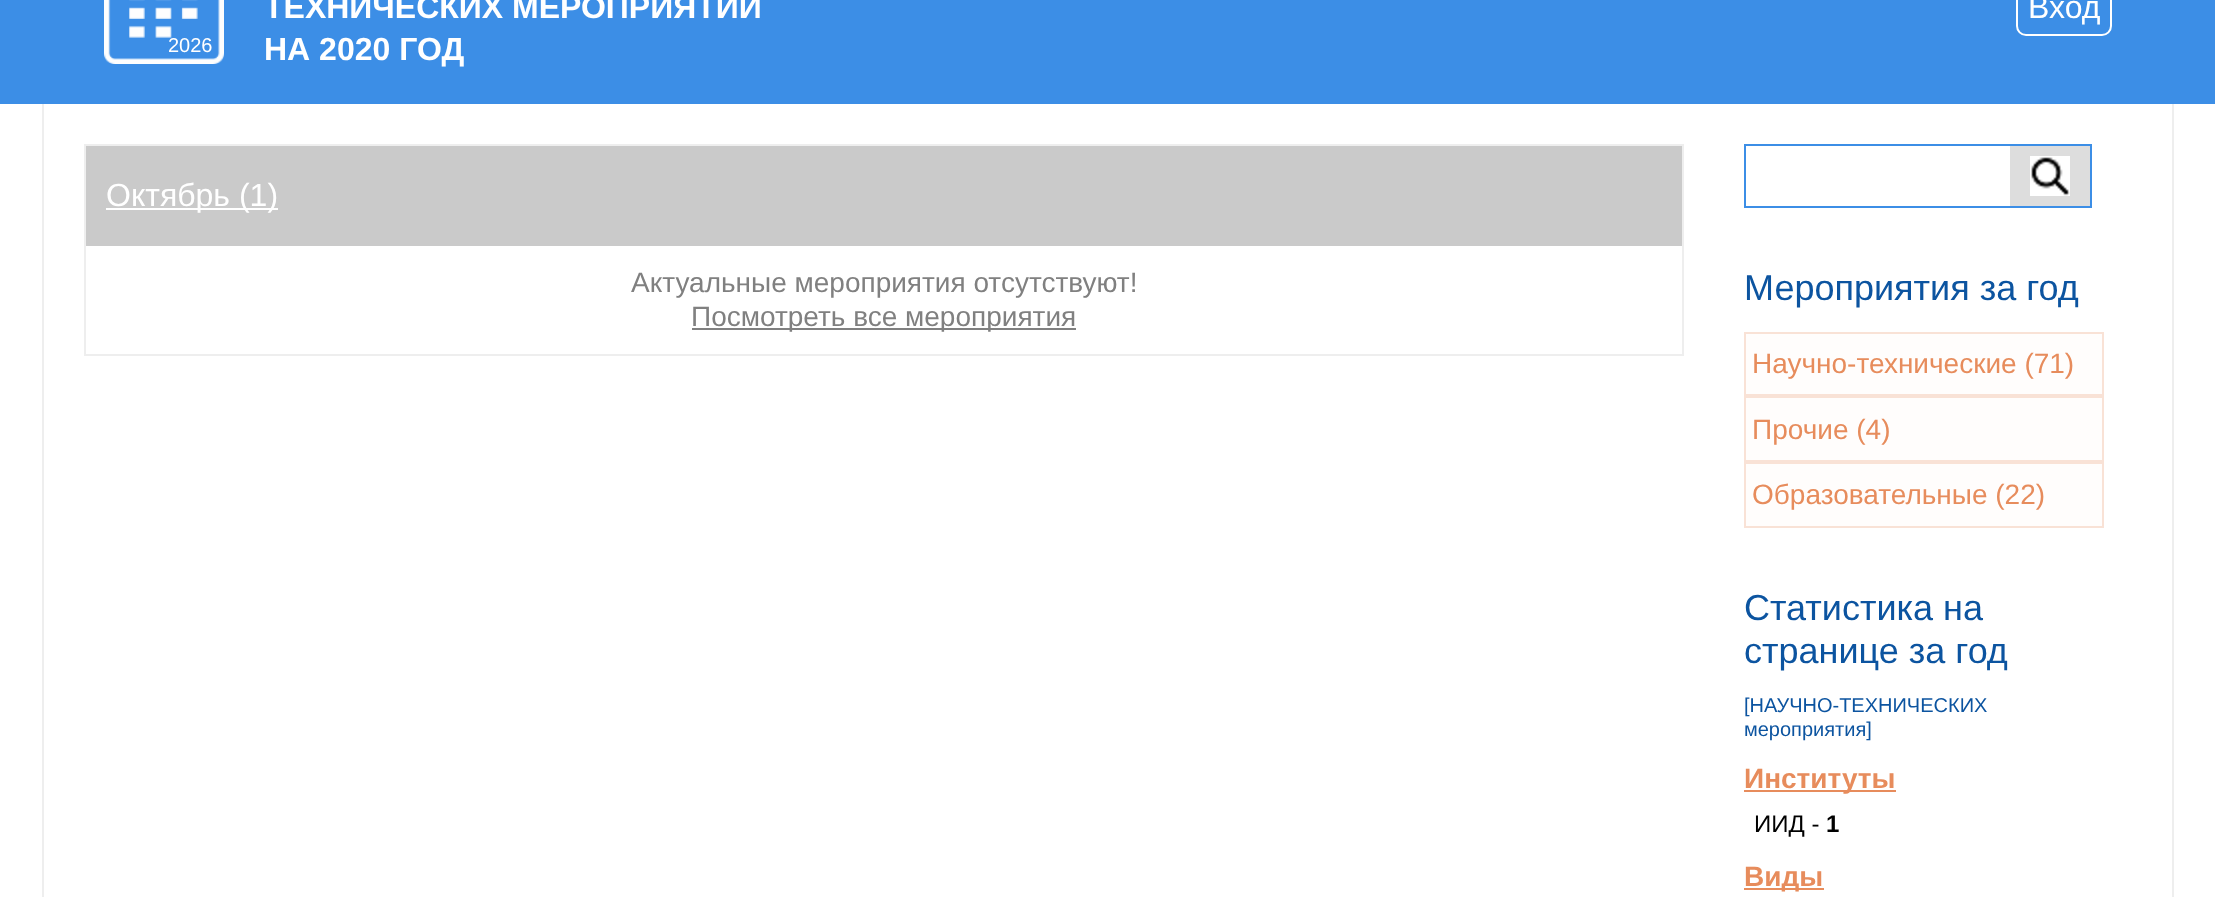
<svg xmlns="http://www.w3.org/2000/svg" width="2215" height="897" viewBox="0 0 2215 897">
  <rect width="100%" height="100%" fill="#ffffff"/>
  <rect x="0" y="0" width="2215" height="104" fill="#3c8ee6"/>
  <text x="264" y="18" font-family="Liberation Sans" font-size="32" font-weight="bold" fill="#ffffff">ТЕХНИЧЕСКИХ МЕРОПРИЯТИЙ</text>
  <text x="264" y="60" font-family="Liberation Sans" font-size="32" font-weight="bold" fill="#ffffff">НА 2020 ГОД</text>
  <rect x="2017" y="-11" width="94" height="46" rx="9" fill="none" stroke="#ffffff" stroke-width="2"/>
  <text x="2028" y="18" font-family="Liberation Sans" font-size="32" fill="#ffffff">Вход</text>
  <image x="104" y="0" width="120" height="64" href="img1.png"/>
  <text x="168" y="52" font-family="Liberation Sans" font-size="20" fill="#ffffff">2026</text>
  <rect x="2172" y="104" width="2" height="793" fill="#eeeeee"/>
  <rect x="42" y="104" width="2" height="793" fill="#eeeeee"/>
  <rect x="84" y="144" width="1600" height="2" fill="#eeeeee"/>
  <rect x="1682" y="144" width="2" height="212" fill="#eeeeee"/>
  <rect x="84" y="354" width="1600" height="2" fill="#eeeeee"/>
  <rect x="84" y="144" width="2" height="212" fill="#eeeeee"/>
  <rect x="86" y="146" width="1596" height="100" fill="#cacaca"/>
  <rect x="106" y="208" width="172" height="2" fill="#ffffff"/>
  <text x="106" y="206" font-family="Liberation Sans" font-size="32" fill="#ffffff">Октябрь (1)</text>
  <text x="631" y="292" font-family="Liberation Sans" font-size="28" fill="#808080">Актуальные мероприятия отсутствуют!</text>
  <rect x="692" y="328" width="384" height="2" fill="#808080"/>
  <text x="691" y="326" font-family="Liberation Sans" font-size="28" fill="#808080">Посмотреть все мероприятия</text>
  <rect x="1745" y="145" width="346" height="62" fill="none" stroke="#3c8ee6" stroke-width="2"/>
  <rect x="2010" y="146" width="80" height="60" fill="#dddddd"/>
  <image x="2030" y="156" width="40" height="40" href="img2.png"/>
  <text x="1744" y="300" font-family="Liberation Sans" font-size="36" fill="#0c54a0">Мероприятия за год</text>
  <rect x="1745" y="333" width="358" height="62" fill="#fffdfc" stroke="#f9e2d6" stroke-width="2"/>
  <text x="1752" y="373" font-family="Liberation Sans" font-size="28" fill="#e78c5c">Научно-технические (71)</text>
  <rect x="1745" y="397" width="358" height="64" fill="#fffdfc" stroke="#f9e2d6" stroke-width="2"/>
  <text x="1752" y="439" font-family="Liberation Sans" font-size="28" fill="#e78c5c">Прочие (4)</text>
  <rect x="1745" y="463" width="358" height="64" fill="#fffdfc" stroke="#f9e2d6" stroke-width="2"/>
  <text x="1752" y="504" font-family="Liberation Sans" font-size="28" fill="#e78c5c">Образовательные (22)</text>
  <text x="1744" y="620" font-family="Liberation Sans" font-size="36" fill="#0c54a0">Статистика на</text>
  <text x="1744" y="663" font-family="Liberation Sans" font-size="36" fill="#0c54a0">странице за год</text>
  <text x="1744" y="712" font-family="Liberation Sans" font-size="20" fill="#0c54a0">[НАУЧНО-ТЕХНИЧЕСКИХ</text>
  <text x="1744" y="736" font-family="Liberation Sans" font-size="20" fill="#0c54a0">мероприятия]</text>
  <rect x="1744" y="790" width="152" height="2" fill="#e78c5c"/>
  <text x="1744" y="788" font-family="Liberation Sans" font-size="28" font-weight="bold" fill="#e78c5c">Институты</text>
  <text x="1754" y="832" font-family="Liberation Sans" font-size="24" fill="#000000">ИИД -</text>
  <text x="1826" y="832" font-family="Liberation Sans" font-size="24" font-weight="bold" fill="#000000">1</text>
  <rect x="1744" y="888" width="80" height="2" fill="#e78c5c"/>
  <text x="1744" y="886" font-family="Liberation Sans" font-size="28" font-weight="bold" fill="#e78c5c">Виды</text>
</svg>
